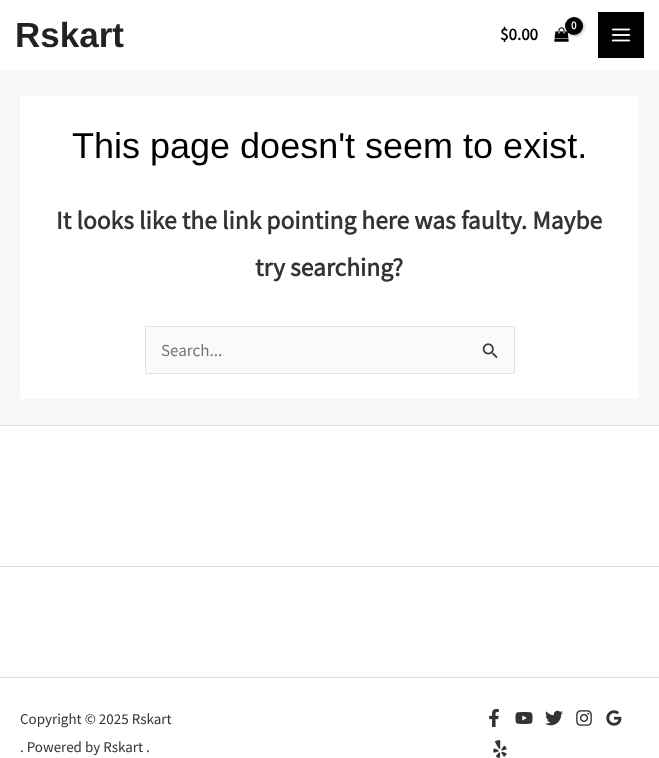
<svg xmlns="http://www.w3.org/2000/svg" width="659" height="758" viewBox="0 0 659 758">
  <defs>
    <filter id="blur1" x="-50%" y="-200%" width="200%" height="500%"><feGaussianBlur stdDeviation="1.5"/></filter>
  </defs>
  <rect width="100%" height="100%" fill="#f5f7f9"/>
  <rect x="0" y="0" width="659" height="70" fill="#ffffff"/>
  <text x="15" y="47" font-family="Liberation Sans" font-size="35" font-weight="bold" fill="#222222">Rskart</text>
  <image x="554" y="27" width="15" height="15" href="img1.png"/>
  <rect x="566" y="18" width="18" height="18" rx="9" fill="#000000" fill-opacity="0.3" filter="url(#blur1)"/>
  <circle cx="574" cy="26" r="9" fill="#000000"/>
  <text x="571" y="29" font-family="Source Sans Pro" font-size="11" font-weight="bold" fill="#ffffff">0</text>
  <text x="500" y="40" font-family="Source Sans Pro" font-size="17" font-weight="bold" fill="#000000">$0.00</text>
  <rect x="598" y="12" width="46" height="46" fill="#000000"/>
  <image x="611" y="28" width="20" height="14" href="img2.png"/>
  <rect x="20" y="96" width="619" height="303" fill="#ffffff"/>
  <text x="72" y="158" font-family="Liberation Sans" font-size="36" fill="#000000">This page doesn't seem to exist.</text>
  <text x="56" y="229" font-family="Source Sans Pro" font-size="25.5" font-weight="bold" fill="#333333">It looks like the link pointing here was faulty. Maybe</text>
  <text x="255" y="276" font-family="Source Sans Pro" font-size="25.5" font-weight="bold" fill="#333333">try searching?</text>
  <rect x="145.5" y="326.5" width="369" height="47" rx="1.5" fill="#fafafa" stroke="#e2e2e2"/>
  <text x="161" y="356" font-family="Source Sans Pro" font-size="17" fill="#757575">Search...</text>
  <image x="482" y="343" width="16" height="16" href="img3.png"/>
  <rect x="0" y="426" width="659" height="332" fill="#ffffff"/>
  <rect x="0" y="425" width="659" height="1" fill="#dddddd"/>
  <rect x="0" y="566" width="659" height="1" fill="#dddddd"/>
  <rect x="0" y="677" width="659" height="1" fill="#dddddd"/>
  <text x="20" y="724" font-family="Source Sans Pro" font-size="15" fill="#333333">Copyright © 2025 Rskart</text>
  <text x="20" y="752" font-family="Source Sans Pro" font-size="15" fill="#333333">. Powered by Rskart .</text>
  <image x="489" y="709" width="10" height="18" href="img4.png"/>
  <image x="515" y="712" width="18" height="12" href="img5.png"/>
  <image x="545" y="710" width="18" height="16" href="img6.png"/>
  <image x="576" y="710" width="16" height="16" href="img7.png"/>
  <image x="606" y="710" width="16" height="16" href="img8.png"/>
  <image x="493" y="740" width="14" height="18" href="img9.png"/>
</svg>
